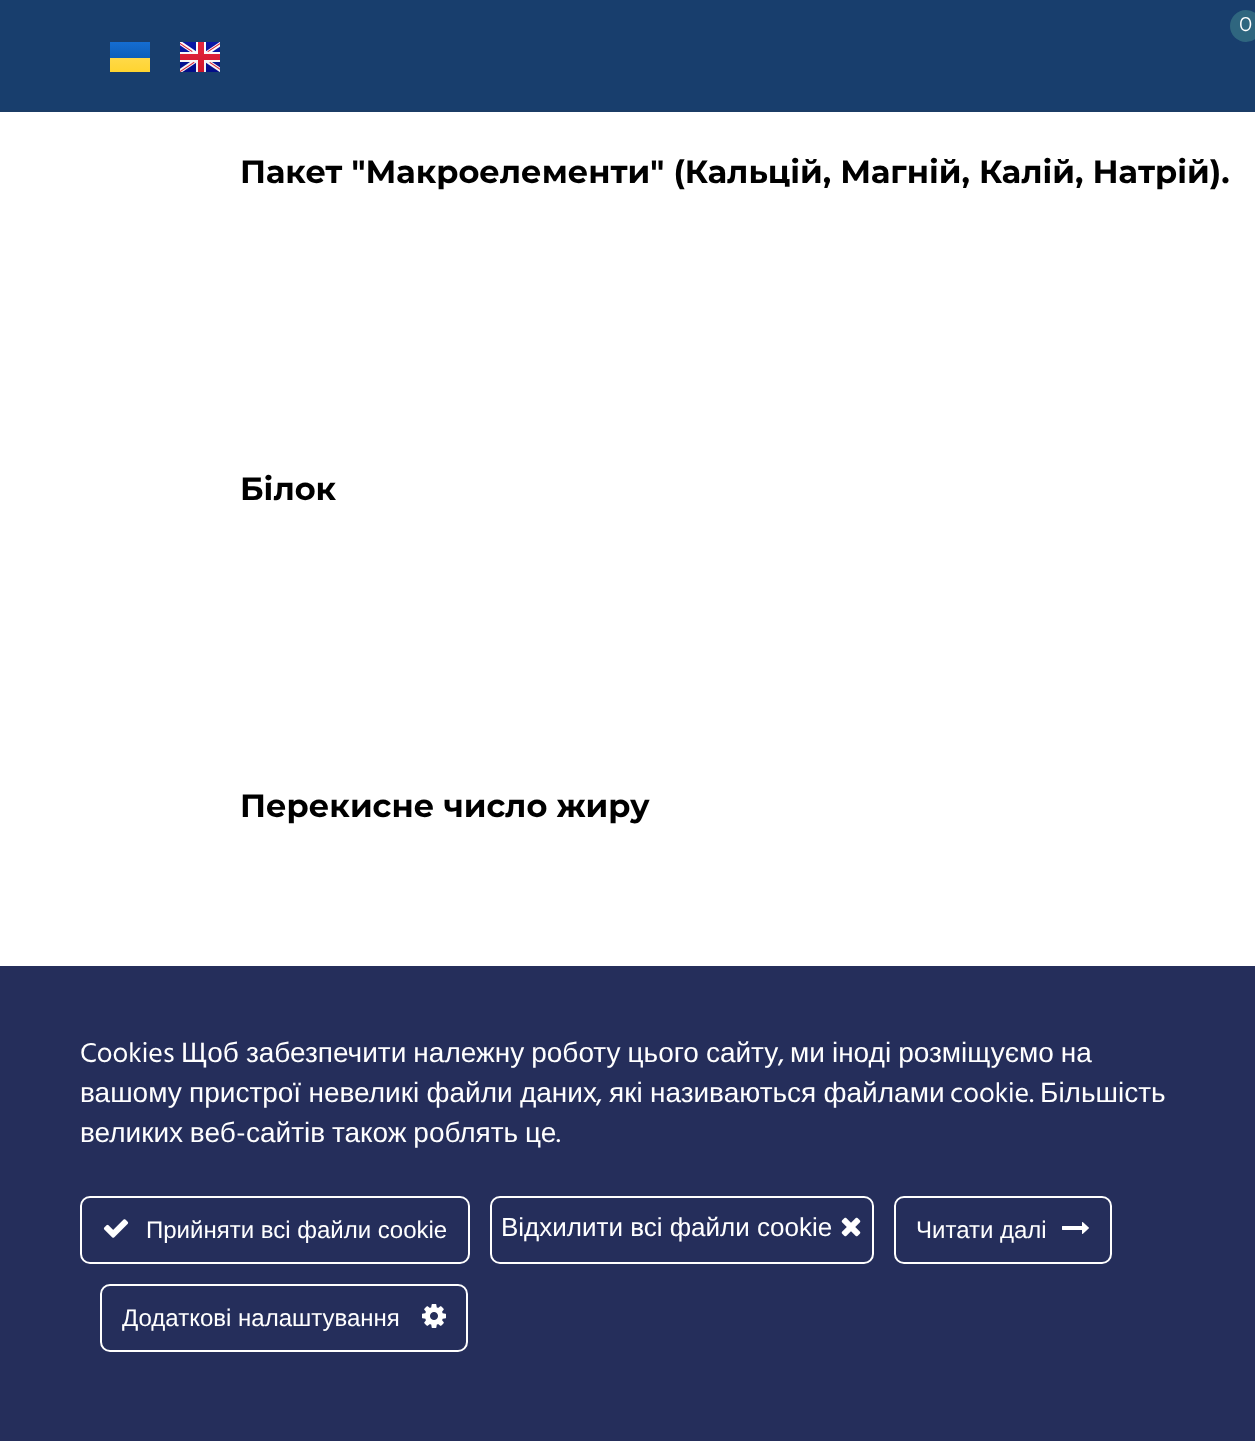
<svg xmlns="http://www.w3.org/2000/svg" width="1255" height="1441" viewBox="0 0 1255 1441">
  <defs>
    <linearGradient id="g1" gradientUnits="userSpaceOnUse" x1="131" y1="42" x2="131" y2="58"><stop offset="0" stop-color="#156dd1"/><stop offset="1" stop-color="#0d5eb9"/></linearGradient>
    <linearGradient id="g2" gradientUnits="userSpaceOnUse" x1="131" y1="58" x2="131" y2="72"><stop offset="0" stop-color="#ffd948"/><stop offset="1" stop-color="#ffd430"/></linearGradient>
  </defs>
  <rect width="100%" height="100%" fill="#ffffff"/>
  <rect x="0" y="0" width="1255" height="110" fill="#183e6d"/>
  <rect x="0" y="110" width="1255" height="2" fill="#1b3c66"/>
  <circle cx="1246" cy="26" r="16" fill="#2f667f"/>
  <text x="1239" y="31" font-family="Montserrat" font-size="20" fill="#ffffff">0</text>
  <rect x="110" y="42" width="40" height="16" fill="url(#g1)"/>
  <rect x="110" y="58" width="40" height="14" fill="url(#g2)"/>
  <image x="180" y="42" width="40" height="30" href="img1.png"/>
  <text x="240" y="183" font-family="Montserrat" font-size="32" font-weight="bold" fill="#000000">Пакет "Макроелементи" (Кальцій, Магній, Калій, Натрій).</text>
  <text x="240" y="500" font-family="Montserrat" font-size="32" font-weight="bold" fill="#000000">Білок</text>
  <text x="240" y="817" font-family="Montserrat" font-size="32" font-weight="bold" fill="#000000">Перекисне число жиру</text>
  <rect x="0" y="966" width="1255" height="475" fill="#252e5b"/>
  <text x="80" y="1062" font-family="Hind" font-size="28" fill="#ffffff">Cookies</text>
  <text x="181" y="1062" word-spacing="-0.75" font-family="Liberation Sans" font-size="28" fill="#ffffff">Щоб забезпечити належну роботу цього сайту</text>
  <text x="778" y="1062" font-family="Hind" font-size="28" fill="#ffffff">,</text>
  <text x="790" y="1062" word-spacing="-0.75" font-family="Liberation Sans" font-size="28" fill="#ffffff">ми іноді розміщуємо на</text>
  <text x="80" y="1102" word-spacing="-0.5" font-family="Liberation Sans" font-size="28" fill="#ffffff">вашому пристрої невеликі файли даних</text>
  <text x="596" y="1102" font-family="Hind" font-size="28" fill="#ffffff">,</text>
  <text x="609" y="1102" word-spacing="-0.5" font-family="Liberation Sans" font-size="28" fill="#ffffff">які називаються файлами</text>
  <text x="950" y="1102" font-family="Hind" font-size="28" fill="#ffffff">cookie.</text>
  <text x="1040" y="1102" font-family="Liberation Sans" font-size="28" fill="#ffffff">Більшість</text>
  <text x="80" y="1142" word-spacing="-1" font-family="Liberation Sans" font-size="28" fill="#ffffff">великих веб</text>
  <text x="236" y="1142" font-family="Hind" font-size="28" fill="#ffffff">-</text>
  <text x="246" y="1142" word-spacing="-1" font-family="Liberation Sans" font-size="28" fill="#ffffff">сайтів також роблять це</text>
  <text x="556" y="1142" font-family="Hind" font-size="28" fill="#ffffff">.</text>
  <rect x="81" y="1197" width="388" height="66" rx="9" fill="none" stroke="#ffffff" stroke-width="2"/>
  <image x="103" y="1219" width="26" height="19" href="img2.png"/>
  <text x="146" y="1238" font-family="Liberation Sans" font-size="24" fill="#ffffff">Прийняти всі файли cookie</text>
  <rect x="491" y="1197" width="382" height="66" rx="9" fill="none" stroke="#ffffff" stroke-width="2"/>
  <text x="501" y="1236" font-family="Liberation Sans" font-size="26" fill="#ffffff">Відхилити всі файли cookie</text>
  <image x="841" y="1217" width="20" height="20" href="img3.png"/>
  <rect x="895" y="1197" width="216" height="66" rx="9" fill="none" stroke="#ffffff" stroke-width="2"/>
  <text x="916" y="1238" font-family="Liberation Sans" font-size="24" fill="#ffffff">Читати далі</text>
  <image x="1062" y="1222" width="27" height="12" href="img4.png"/>
  <rect x="101" y="1285" width="366" height="66" rx="9" fill="none" stroke="#ffffff" stroke-width="2"/>
  <text x="122" y="1326" font-family="Liberation Sans" font-size="24" fill="#ffffff">Додаткові налаштування</text>
  <image x="422" y="1304" width="24" height="24" href="img5.png"/>
</svg>
